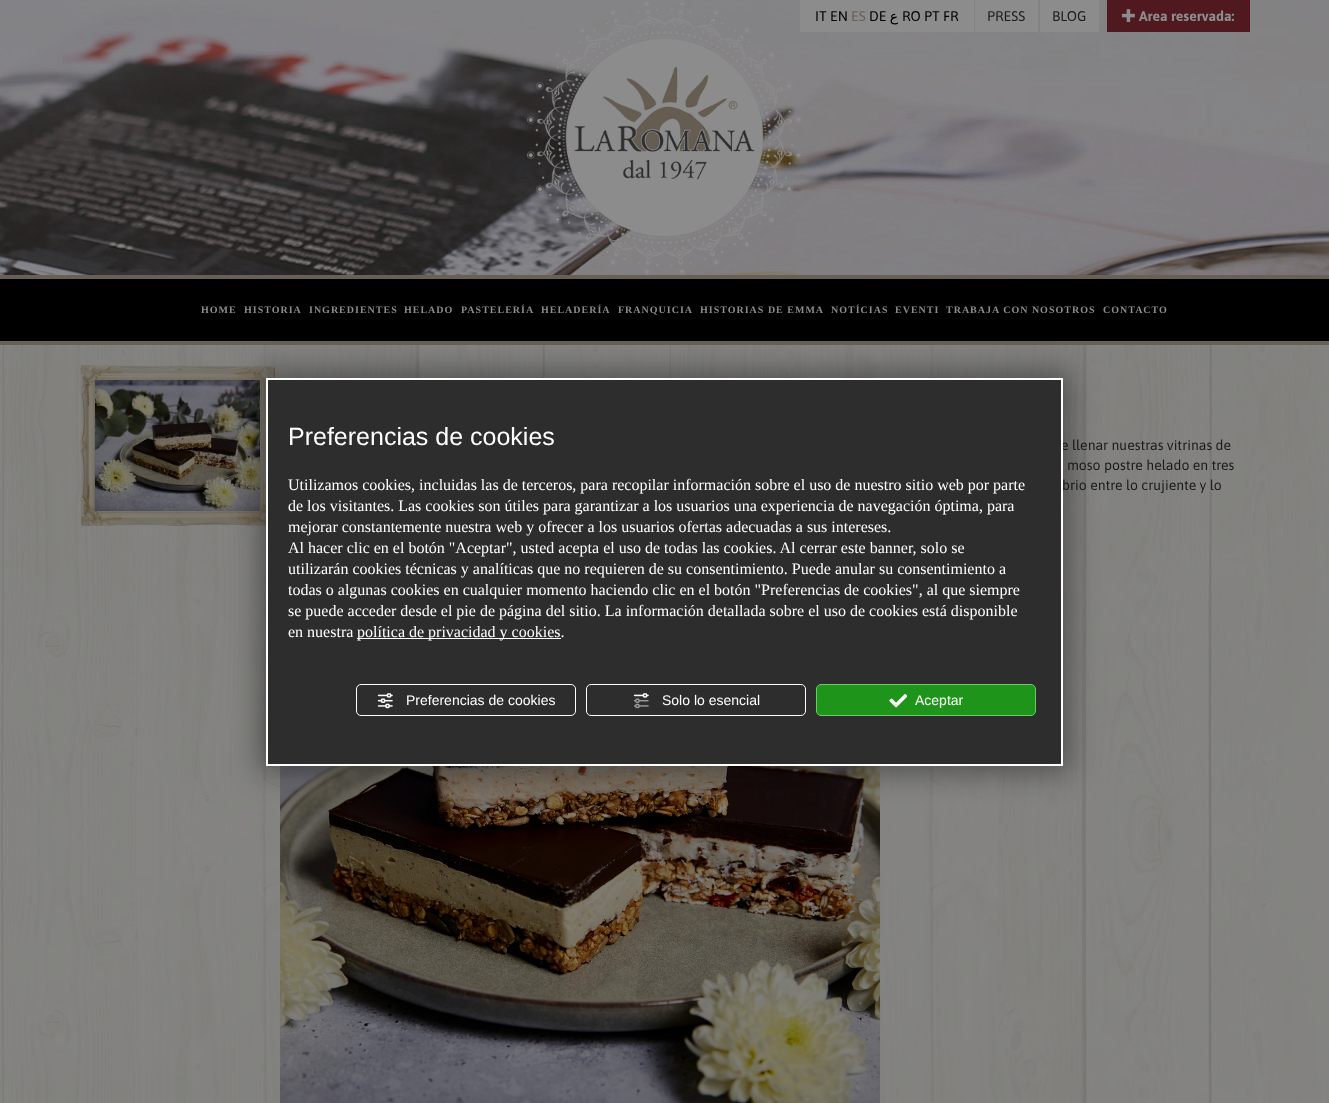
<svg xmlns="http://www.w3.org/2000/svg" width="1329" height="1103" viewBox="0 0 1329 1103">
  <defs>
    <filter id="blur1" x="-50%" y="-200%" width="200%" height="500%"><feGaussianBlur stdDeviation="14.5"/></filter>
  </defs>
  <rect width="100%" height="100%" fill="#ffffff"/>
  <image x="0" y="345" width="1329" height="758" href="img1.png"/>
  <image x="0" y="0" width="1329" height="275" href="img2.png"/>
  <rect x="0" y="275" width="1329" height="4" fill="#696055"/>
  <image x="527" y="0" width="275" height="275" href="img3.png"/>
  <rect x="800" y="0" width="174" height="32" fill="#8c8c8c"/>
  <text x="815" y="21" font-family="Asap" font-size="14" fill="#000000">IT EN</text>
  <text x="851" y="21" font-family="Asap" font-size="14" fill="#696055">ES</text>
  <text x="869" y="21" font-family="Asap" font-size="14" fill="#000000">DE</text>
  <text x="898" y="21" font-family="DejaVu Sans" font-size="14" direction="rtl" fill="#000000">ع</text>
  <text x="902" y="21" font-family="Asap" font-size="14" fill="#000000">RO PT FR</text>
  <rect x="975" y="0" width="63" height="32" fill="#8c8c8c"/>
  <text x="987" y="21" font-family="Asap" font-size="14" fill="#1c1c1c">PRESS</text>
  <rect x="1040" y="0" width="59" height="32" fill="#8c8c8c"/>
  <text x="1052" y="21" font-family="Asap" font-size="14" fill="#1c1c1c">BLOG</text>
  <rect x="1107" y="0" width="143" height="32" fill="#50191f"/>
  <image x="1122" y="9" width="13" height="13" href="img4.png"/>
  <text x="1139" y="21" font-family="Asap" font-size="14" font-weight="bold" fill="#8c8c8c">Area reservada:</text>
  <rect x="0" y="279" width="1329" height="62" fill="#000000"/>
  <rect x="0" y="341" width="1329" height="4" fill="#696055"/>
  <text x="201" y="313" font-family="Tinos" font-size="10" font-weight="bold" letter-spacing="1" fill="#8c8c8c">HOME</text>
  <text x="244" y="313" font-family="Tinos" font-size="10" font-weight="bold" letter-spacing="1" fill="#8c8c8c">HISTORIA</text>
  <text x="309" y="313" font-family="Tinos" font-size="10" font-weight="bold" letter-spacing="1" fill="#8c8c8c">INGREDIENTES</text>
  <text x="404" y="313" font-family="Tinos" font-size="10" font-weight="bold" letter-spacing="1" fill="#8c8c8c">HELADO</text>
  <text x="461" y="313" font-family="Tinos" font-size="10" font-weight="bold" letter-spacing="1" fill="#8c8c8c">PASTELERÍA</text>
  <text x="541" y="313" font-family="Tinos" font-size="10" font-weight="bold" letter-spacing="1" fill="#8c8c8c">HELADERÍA</text>
  <text x="618" y="313" font-family="Tinos" font-size="10" font-weight="bold" letter-spacing="1" fill="#8c8c8c">FRANQUICIA</text>
  <text x="700" y="313" font-family="Tinos" font-size="10" font-weight="bold" letter-spacing="1" fill="#8c8c8c">HISTORIAS DE EMMA</text>
  <text x="831" y="313" font-family="Tinos" font-size="10" font-weight="bold" letter-spacing="1" fill="#8c8c8c">NOTÍCIAS</text>
  <text x="895" y="313" font-family="Tinos" font-size="10" font-weight="bold" letter-spacing="1" fill="#8c8c8c">EVENTI</text>
  <text x="946" y="313" font-family="Tinos" font-size="10" font-weight="bold" letter-spacing="1" fill="#8c8c8c">TRABAJA CON NOSOTROS</text>
  <text x="1103" y="313" font-family="Tinos" font-size="10" font-weight="bold" letter-spacing="1" fill="#8c8c8c">CONTACTO</text>
  <image x="80" y="365" width="195" height="161" href="img5.png"/>
  <image x="95" y="380" width="165" height="131" href="img6.png"/>
  <text x="1061" y="450" font-family="Asap" font-size="14" fill="#1c1c1c">e llenar nuestras vitrinas de</text>
  <text x="1067" y="470" font-family="Asap" font-size="14" fill="#1c1c1c">moso postre helado en tres</text>
  <text x="1062" y="490" font-family="Asap" font-size="14" fill="#1c1c1c">brio entre lo crujiente y lo</text>
  <image x="280" y="766" width="600" height="337" href="img7.png"/>
  <rect x="259" y="371" width="811" height="402" fill="#000000" fill-opacity="0.38" filter="url(#blur1)"/>
  <rect x="267" y="379" width="795" height="386" fill="#2d2d2d" stroke="#ffffff" stroke-width="2"/>
  <text x="288" y="445" font-family="Liberation Sans" font-size="25" fill="#ffffff">Preferencias de cookies</text>
  <text x="288" y="490" font-family="Liberation Serif" font-size="16" fill="#ffffff">Utilizamos cookies, incluidas las de terceros, para recopilar información sobre el uso de nuestro sitio web por parte</text>
  <text x="288" y="511" font-family="Liberation Serif" font-size="16" fill="#ffffff">de los visitantes. Las cookies son útiles para garantizar a los usuarios una experiencia de navegación óptima, para</text>
  <text x="288" y="532" font-family="Liberation Serif" font-size="16" fill="#ffffff">mejorar constantemente nuestra web y ofrecer a los usuarios ofertas adecuadas a sus intereses.</text>
  <text x="288" y="553" font-family="Liberation Serif" font-size="16" fill="#ffffff">Al hacer clic en el botón "Aceptar", usted acepta el uso de todas las cookies. Al cerrar este banner, solo se</text>
  <text x="288" y="574" font-family="Liberation Serif" font-size="16" fill="#ffffff">utilizarán cookies técnicas y analíticas que no requieren de su consentimiento. Puede anular su consentimiento a</text>
  <text x="288" y="595" font-family="Liberation Serif" font-size="16" fill="#ffffff">todas o algunas cookies en cualquier momento haciendo clic en el botón "Preferencias de cookies", al que siempre</text>
  <text x="288" y="616" font-family="Liberation Serif" font-size="16" fill="#ffffff">se puede acceder desde el pie de página del sitio. La información detallada sobre el uso de cookies está disponible</text>
  <text x="288" y="637" font-family="Liberation Serif" font-size="16" fill="#ffffff">en nuestra</text>
  <rect x="357" y="638" width="204" height="1" fill="#ffffff"/>
  <text x="357" y="637" font-family="Liberation Serif" font-size="16" fill="#ffffff">política de privacidad y cookies.</text>
  <rect x="356.5" y="684.5" width="219" height="31" rx="4.5" fill="none" stroke="#ffffff"/>
  <image x="377" y="693" width="16" height="16" href="img8.png"/>
  <text x="406" y="705" font-family="Liberation Sans" font-size="14" fill="#ffffff">Preferencias de cookies</text>
  <rect x="586.5" y="684.5" width="219" height="31" rx="4.5" fill="none" stroke="#ffffff"/>
  <image x="633" y="693" width="16" height="16" href="img9.png"/>
  <text x="662" y="705" font-family="Liberation Sans" font-size="14" fill="#ffffff">Solo lo esencial</text>
  <rect x="816.5" y="684.5" width="219" height="31" rx="4.5" fill="#1e941a" stroke="#6cca69"/>
  <image x="889" y="694" width="18" height="14" href="img10.png"/>
  <text x="915" y="705" font-family="Liberation Sans" font-size="14" fill="#ffffff">Aceptar</text>
</svg>
